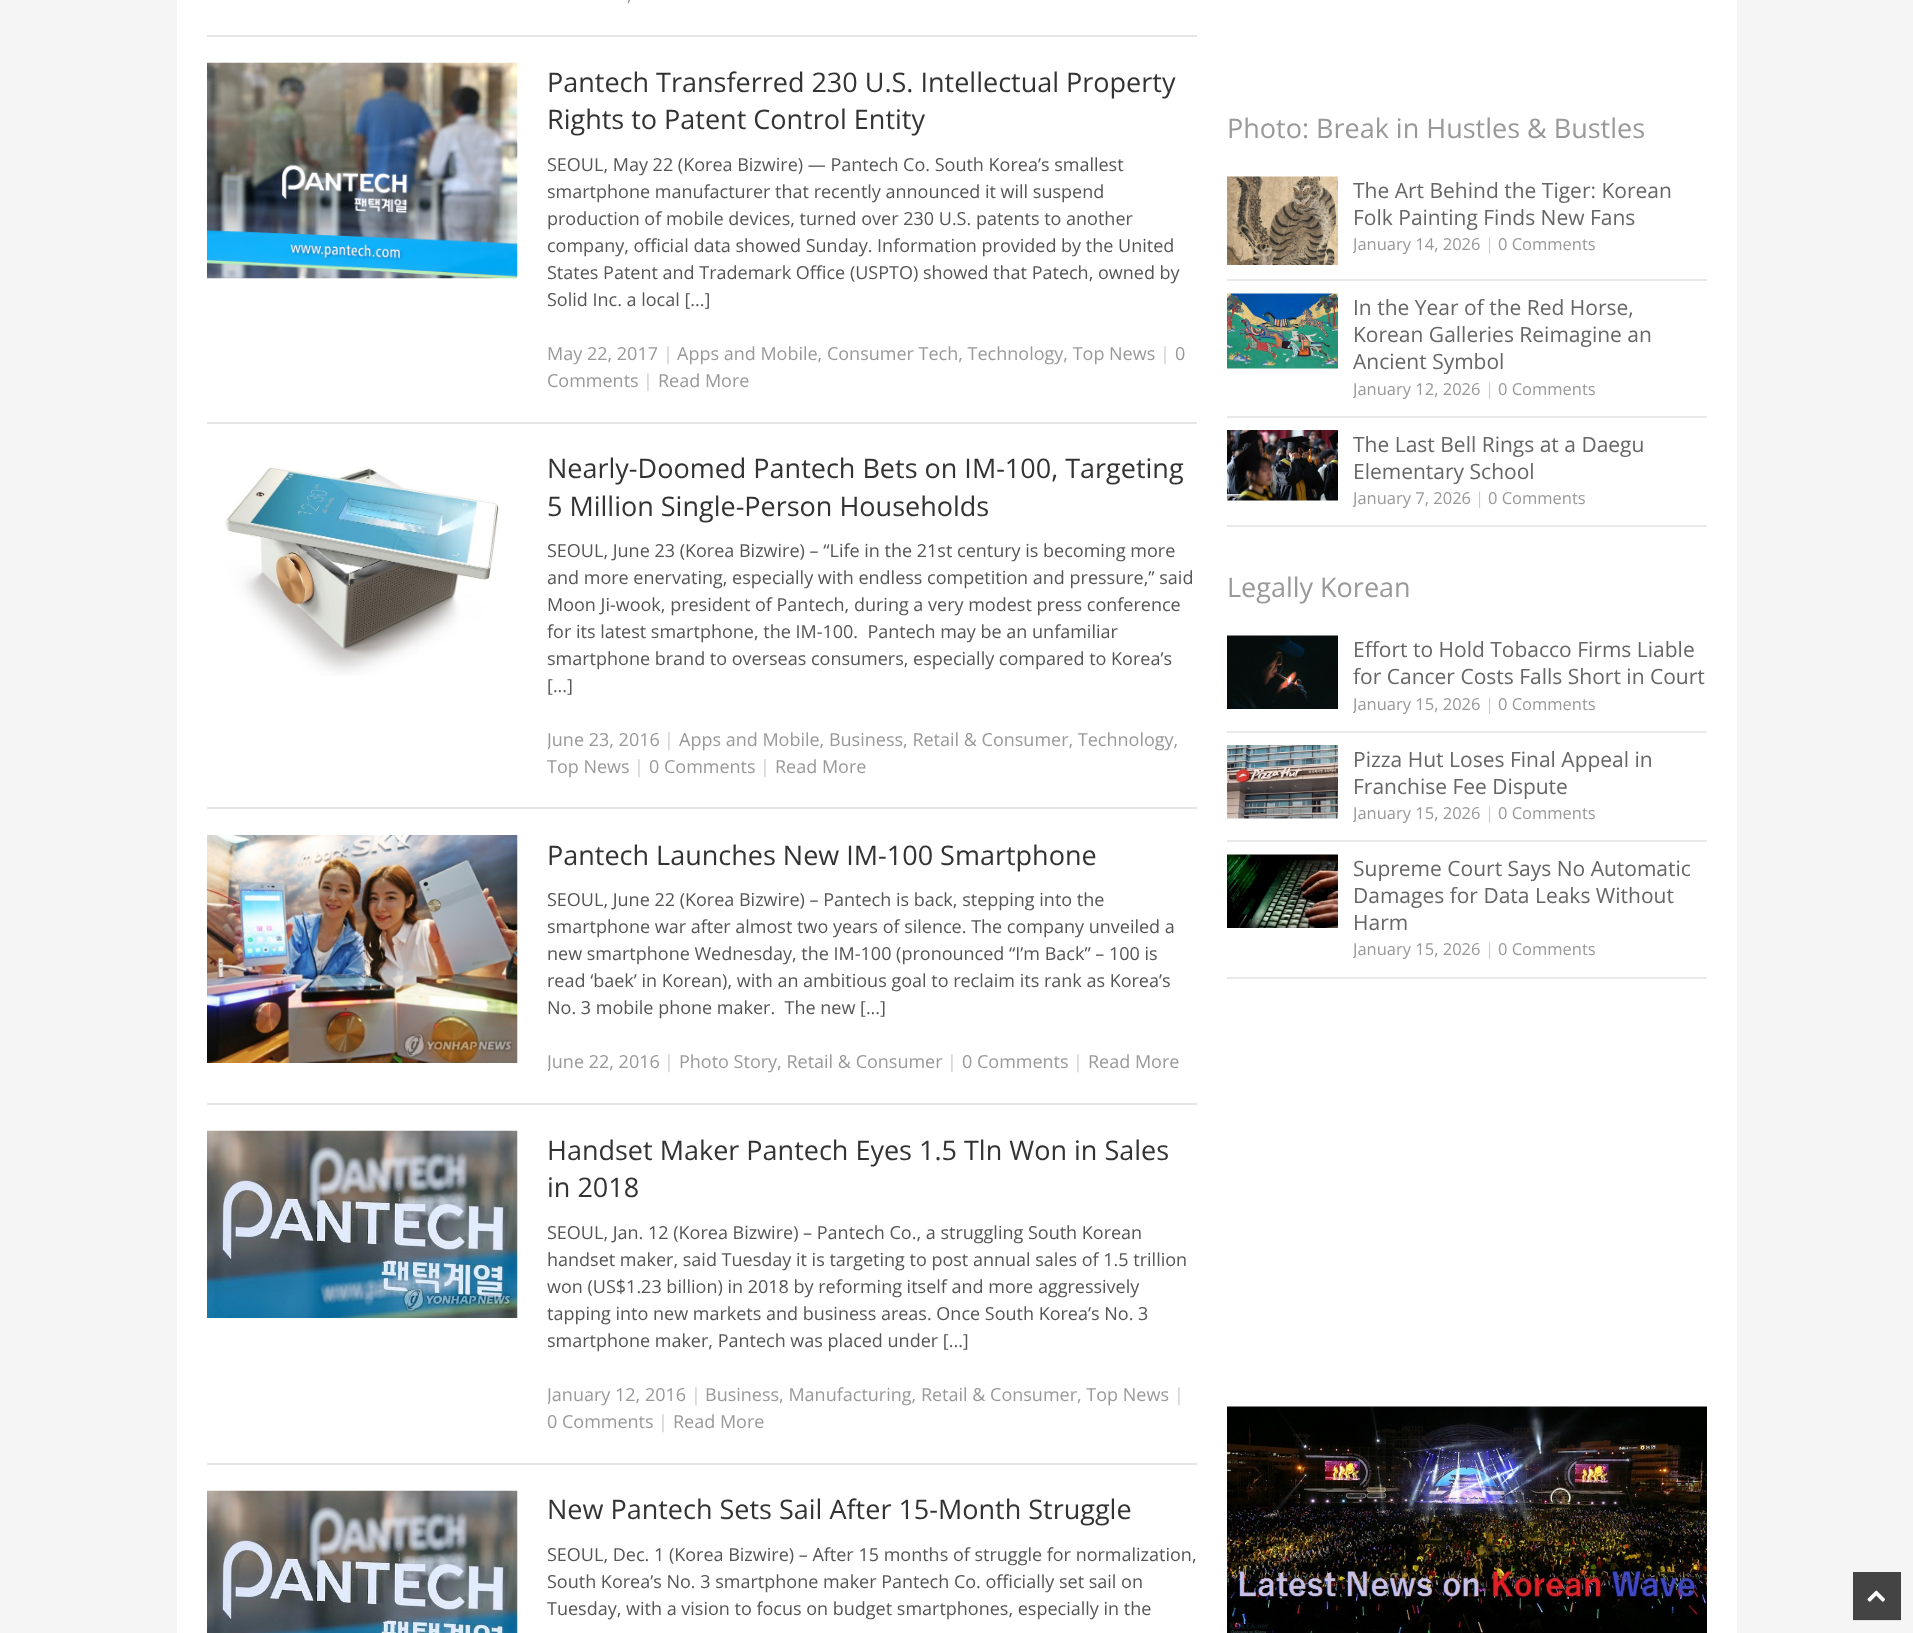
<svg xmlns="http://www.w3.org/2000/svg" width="1913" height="1633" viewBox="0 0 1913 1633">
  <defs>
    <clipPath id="clip1"><rect x="548" y="726" width="649" height="54"/></clipPath>
    <clipPath id="clip2"><rect x="548" y="1049" width="649" height="27"/></clipPath>
    <clipPath id="clip3"><rect x="548" y="1382" width="649" height="54"/></clipPath>
    <clipPath id="clip4"><rect x="1353" y="231" width="354" height="27"/></clipPath>
    <clipPath id="clip5"><rect x="1353" y="375" width="354" height="27"/></clipPath>
    <clipPath id="clip6"><rect x="1353" y="485" width="354" height="27"/></clipPath>
    <clipPath id="clip7"><rect x="1353" y="690" width="354" height="27"/></clipPath>
    <clipPath id="clip8"><rect x="1353" y="800" width="354" height="27"/></clipPath>
    <clipPath id="clip9"><rect x="1353" y="936" width="354" height="27"/></clipPath>
  </defs>
  <rect width="100%" height="100%" fill="#f5f5f5"/>
  <rect x="1853" y="1620" width="48" height="1" fill="#e4e4e4"/>
  <rect x="177" y="0" width="1560" height="1633" fill="#ffffff"/>
  <rect x="207" y="35" width="990" height="2" fill="#e5e5e5"/>
  <text x="627" y="1" font-family="Open Sans" font-size="18" fill="#999999">,</text>
  <rect x="207" y="422" width="990" height="2" fill="#e5e5e5"/>
  <image x="207" y="62" width="311" height="217" href="img1.png"/>
  <text x="547" y="92" font-family="Open Sans" font-size="27" fill="#333333">Pantech Transferred 230 U.S. Intellectual Property</text>
  <text x="547" y="129" font-family="Open Sans" font-size="27" fill="#333333">Rights to Patent Control Entity</text>
  <text x="547" y="171" font-family="Open Sans" font-size="18" fill="#555555">SEOUL, May 22 (Korea Bizwire) — Pantech Co. South Korea’s smallest</text>
  <text x="547" y="198" font-family="Open Sans" font-size="18" fill="#555555">smartphone manufacturer that recently announced it will suspend</text>
  <text x="547" y="225" font-family="Open Sans" font-size="18" fill="#555555">production of mobile devices, turned over 230 U.S. patents to another</text>
  <text x="547" y="252" font-family="Open Sans" font-size="18" fill="#555555">company, official data showed Sunday. Information provided by the United</text>
  <text x="547" y="279" font-family="Open Sans" font-size="18" fill="#555555">States Patent and Trademark Office (USPTO) showed that Patech, owned by</text>
  <text x="547" y="306" font-family="Open Sans" font-size="18" fill="#555555">Solid Inc. a local [...]</text>
  <text x="547" y="360" font-family="Open Sans" font-size="18" fill="#999999">May 22, 2017</text>
  <text x="663" y="360" font-family="Open Sans" font-size="18" fill="#cccccc">|</text>
  <text x="677" y="360" font-family="Open Sans" font-size="18" fill="#999999">Apps and Mobile, Consumer Tech, Technology, Top News</text>
  <text x="1160" y="360" font-family="Open Sans" font-size="18" fill="#cccccc">|</text>
  <text x="1175" y="360" font-family="Open Sans" font-size="18" fill="#999999">0</text>
  <text x="547" y="387" font-family="Open Sans" font-size="18" fill="#999999">Comments</text>
  <text x="643" y="387" font-family="Open Sans" font-size="18" fill="#cccccc">|</text>
  <text x="658" y="387" font-family="Open Sans" font-size="18" fill="#999999">Read More</text>
  <rect x="207" y="807" width="990" height="2" fill="#e5e5e5"/>
  <image x="225" y="467" width="274" height="209" href="img2.png"/>
  <text x="547" y="478" font-family="Open Sans" font-size="27" fill="#333333">Nearly-Doomed Pantech Bets on IM-100, Targeting</text>
  <text x="547" y="516" font-family="Open Sans" font-size="27" fill="#333333">5 Million Single-Person Households</text>
  <text x="547" y="557" font-family="Open Sans" font-size="18" fill="#555555">SEOUL, June 23 (Korea Bizwire) – “Life in the 21st century is becoming more</text>
  <text x="547" y="584" font-family="Open Sans" font-size="18" fill="#555555">and more enervating, especially with endless competition and pressure,” said</text>
  <text x="547" y="611" font-family="Open Sans" font-size="18" fill="#555555">Moon Ji-wook, president of Pantech, during a very modest press conference</text>
  <text x="547" y="638" font-family="Open Sans" font-size="18" fill="#555555" xml:space="preserve">for its latest smartphone, the IM-100.  Pantech may be an unfamiliar</text>
  <text x="547" y="665" font-family="Open Sans" font-size="18" fill="#555555">smartphone brand to overseas consumers, especially compared to Korea’s</text>
  <text x="547" y="692" font-family="Open Sans" font-size="18" fill="#555555">[...]</text>
  <g clip-path="url(#clip1)">
    <text x="547" y="746" font-family="Open Sans" font-size="18" fill="#999999">June 23, 2016</text>
  </g>
  <text x="664" y="746" font-family="Open Sans" font-size="18" fill="#cccccc">|</text>
  <text x="679" y="746" font-family="Open Sans" font-size="18" fill="#999999">Apps and Mobile, Business, Retail &amp; Consumer, Technology,</text>
  <text x="547" y="773" font-family="Open Sans" font-size="18" fill="#999999">Top News</text>
  <text x="634" y="773" font-family="Open Sans" font-size="18" fill="#cccccc">|</text>
  <text x="649" y="773" font-family="Open Sans" font-size="18" fill="#999999">0 Comments</text>
  <text x="760" y="773" font-family="Open Sans" font-size="18" fill="#cccccc">|</text>
  <text x="775" y="773" font-family="Open Sans" font-size="18" fill="#999999">Read More</text>
  <rect x="207" y="1103" width="990" height="2" fill="#e5e5e5"/>
  <image x="207" y="835" width="311" height="228" href="img3.png"/>
  <text x="547" y="865" font-family="Open Sans" font-size="27" fill="#333333">Pantech Launches New IM-100 Smartphone</text>
  <text x="547" y="906" font-family="Open Sans" font-size="18" fill="#555555">SEOUL, June 22 (Korea Bizwire) – Pantech is back, stepping into the</text>
  <text x="547" y="933" font-family="Open Sans" font-size="18" fill="#555555">smartphone war after almost two years of silence. The company unveiled a</text>
  <text x="547" y="960" font-family="Open Sans" font-size="18" fill="#555555">new smartphone Wednesday, the IM-100 (pronounced “I’m Back” – 100 is</text>
  <text x="547" y="987" font-family="Open Sans" font-size="18" fill="#555555">read ‘baek’ in Korean), with an ambitious goal to reclaim its rank as Korea’s</text>
  <text x="547" y="1014" font-family="Open Sans" font-size="18" fill="#555555" xml:space="preserve">No. 3 mobile phone maker.  The new [...]</text>
  <g clip-path="url(#clip2)">
    <text x="547" y="1068" font-family="Open Sans" font-size="18" fill="#999999">June 22, 2016</text>
  </g>
  <text x="664" y="1068" font-family="Open Sans" font-size="18" fill="#cccccc">|</text>
  <text x="679" y="1068" font-family="Open Sans" font-size="18" fill="#999999">Photo Story, Retail &amp; Consumer</text>
  <text x="947" y="1068" font-family="Open Sans" font-size="18" fill="#cccccc">|</text>
  <text x="962" y="1068" font-family="Open Sans" font-size="18" fill="#999999">0 Comments</text>
  <text x="1073" y="1068" font-family="Open Sans" font-size="18" fill="#cccccc">|</text>
  <text x="1088" y="1068" font-family="Open Sans" font-size="18" fill="#999999">Read More</text>
  <rect x="207" y="1463" width="990" height="2" fill="#e5e5e5"/>
  <image x="207" y="1130" width="311" height="188" href="img4.png"/>
  <text x="547" y="1160" font-family="Open Sans" font-size="27" fill="#333333">Handset Maker Pantech Eyes 1.5 Tln Won in Sales</text>
  <text x="547" y="1197" font-family="Open Sans" font-size="27" fill="#333333">in 2018</text>
  <text x="547" y="1239" font-family="Open Sans" font-size="18" fill="#555555">SEOUL, Jan. 12 (Korea Bizwire) – Pantech Co., a struggling South Korean</text>
  <text x="547" y="1266" font-family="Open Sans" font-size="18" fill="#555555">handset maker, said Tuesday it is targeting to post annual sales of 1.5 trillion</text>
  <text x="547" y="1293" font-family="Open Sans" font-size="18" fill="#555555">won (US$1.23 billion) in 2018 by reforming itself and more aggressively</text>
  <text x="547" y="1320" font-family="Open Sans" font-size="18" fill="#555555">tapping into new markets and business areas. Once South Korea’s No. 3</text>
  <text x="547" y="1347" font-family="Open Sans" font-size="18" fill="#555555">smartphone maker, Pantech was placed under [...]</text>
  <g clip-path="url(#clip3)">
    <text x="547" y="1401" font-family="Open Sans" font-size="18" fill="#999999">January 12, 2016</text>
  </g>
  <text x="691" y="1401" font-family="Open Sans" font-size="18" fill="#cccccc">|</text>
  <text x="705" y="1401" font-family="Open Sans" font-size="18" fill="#999999">Business, Manufacturing, Retail &amp; Consumer, Top News</text>
  <text x="1174" y="1401" font-family="Open Sans" font-size="18" fill="#cccccc">|</text>
  <text x="547" y="1428" font-family="Open Sans" font-size="18" fill="#999999">0 Comments</text>
  <text x="658" y="1428" font-family="Open Sans" font-size="18" fill="#cccccc">|</text>
  <text x="673" y="1428" font-family="Open Sans" font-size="18" fill="#999999">Read More</text>
  <image x="207" y="1490" width="311" height="143" href="img5.png"/>
  <text x="547" y="1519" font-family="Open Sans" font-size="27" fill="#333333">New Pantech Sets Sail After 15-Month Struggle</text>
  <text x="547" y="1561" font-family="Open Sans" font-size="18" fill="#555555">SEOUL, Dec. 1 (Korea Bizwire) – After 15 months of struggle for normalization,</text>
  <text x="547" y="1588" font-family="Open Sans" font-size="18" fill="#555555">South Korea’s No. 3 smartphone maker Pantech Co. officially set sail on</text>
  <text x="547" y="1615" font-family="Open Sans" font-size="18" fill="#555555">Tuesday, with a vision to focus on budget smartphones, especially in the</text>
  <text x="1227" y="138" font-family="Open Sans" font-size="27" fill="#999999">Photo: Break in Hustles &amp; Bustles</text>
  <rect x="1227" y="279" width="480" height="2" fill="#e9e9e9"/>
  <image x="1227" y="176" width="111" height="89" href="img6.png"/>
  <text x="1353" y="198" font-family="Open Sans" font-size="21" fill="#666666">The Art Behind the Tiger: Korean</text>
  <text x="1353" y="225" font-family="Open Sans" font-size="21" fill="#666666">Folk Painting Finds New Fans</text>
  <g clip-path="url(#clip4)">
    <text x="1353" y="250" font-family="Open Sans" font-size="16.5" fill="#999999">January 14, 2026</text>
  </g>
  <text x="1485" y="250" font-family="Open Sans" font-size="16.5" fill="#cccccc">|</text>
  <text x="1498" y="250" font-family="Open Sans" font-size="16.5" fill="#999999">0 Comments</text>
  <rect x="1227" y="416" width="480" height="2" fill="#e9e9e9"/>
  <image x="1227" y="293" width="111" height="76" href="img7.png"/>
  <text x="1353" y="315" font-family="Open Sans" font-size="21" fill="#666666">In the Year of the Red Horse,</text>
  <text x="1353" y="342" font-family="Open Sans" font-size="21" fill="#666666">Korean Galleries Reimagine an</text>
  <text x="1353" y="369" font-family="Open Sans" font-size="21" fill="#666666">Ancient Symbol</text>
  <g clip-path="url(#clip5)">
    <text x="1353" y="395" font-family="Open Sans" font-size="16.5" fill="#999999">January 12, 2026</text>
  </g>
  <text x="1485" y="395" font-family="Open Sans" font-size="16.5" fill="#cccccc">|</text>
  <text x="1498" y="395" font-family="Open Sans" font-size="16.5" fill="#999999">0 Comments</text>
  <rect x="1227" y="525" width="480" height="2" fill="#e9e9e9"/>
  <image x="1227" y="430" width="111" height="71" href="img8.png"/>
  <text x="1353" y="452" font-family="Open Sans" font-size="21" fill="#666666">The Last Bell Rings at a Daegu</text>
  <text x="1353" y="479" font-family="Open Sans" font-size="21" fill="#666666">Elementary School</text>
  <g clip-path="url(#clip6)">
    <text x="1353" y="504" font-family="Open Sans" font-size="16.5" fill="#999999">January 7, 2026</text>
  </g>
  <text x="1475" y="504" font-family="Open Sans" font-size="16.5" fill="#cccccc">|</text>
  <text x="1488" y="504" font-family="Open Sans" font-size="16.5" fill="#999999">0 Comments</text>
  <text x="1227" y="597" font-family="Open Sans" font-size="27" fill="#999999">Legally Korean</text>
  <rect x="1227" y="731" width="480" height="2" fill="#e9e9e9"/>
  <image x="1227" y="635" width="111" height="74" href="img9.png"/>
  <text x="1353" y="657" font-family="Open Sans" font-size="21" fill="#666666">Effort to Hold Tobacco Firms Liable</text>
  <text x="1353" y="684" font-family="Open Sans" font-size="21" fill="#666666">for Cancer Costs Falls Short in Court</text>
  <g clip-path="url(#clip7)">
    <text x="1353" y="710" font-family="Open Sans" font-size="16.5" fill="#999999">January 15, 2026</text>
  </g>
  <text x="1485" y="710" font-family="Open Sans" font-size="16.5" fill="#cccccc">|</text>
  <text x="1498" y="710" font-family="Open Sans" font-size="16.5" fill="#999999">0 Comments</text>
  <rect x="1227" y="840" width="480" height="2" fill="#e9e9e9"/>
  <image x="1227" y="745" width="111" height="74" href="img10.png"/>
  <text x="1353" y="767" font-family="Open Sans" font-size="21" fill="#666666">Pizza Hut Loses Final Appeal in</text>
  <text x="1353" y="794" font-family="Open Sans" font-size="21" fill="#666666">Franchise Fee Dispute</text>
  <g clip-path="url(#clip8)">
    <text x="1353" y="819" font-family="Open Sans" font-size="16.5" fill="#999999">January 15, 2026</text>
  </g>
  <text x="1485" y="819" font-family="Open Sans" font-size="16.5" fill="#cccccc">|</text>
  <text x="1498" y="819" font-family="Open Sans" font-size="16.5" fill="#999999">0 Comments</text>
  <rect x="1227" y="977" width="480" height="2" fill="#e9e9e9"/>
  <image x="1227" y="854" width="111" height="74" href="img11.png"/>
  <text x="1353" y="876" font-family="Open Sans" font-size="21" fill="#666666">Supreme Court Says No Automatic</text>
  <text x="1353" y="903" font-family="Open Sans" font-size="21" fill="#666666">Damages for Data Leaks Without</text>
  <text x="1353" y="930" font-family="Open Sans" font-size="21" fill="#666666">Harm</text>
  <g clip-path="url(#clip9)">
    <text x="1353" y="955" font-family="Open Sans" font-size="16.5" fill="#999999">January 15, 2026</text>
  </g>
  <text x="1485" y="955" font-family="Open Sans" font-size="16.5" fill="#cccccc">|</text>
  <text x="1498" y="955" font-family="Open Sans" font-size="16.5" fill="#999999">0 Comments</text>
  <image x="1227" y="1406" width="480" height="227" href="img12.png"/>
  <rect x="1853" y="1572" width="48" height="47" fill="#444444"/>
  <rect x="1853" y="1619" width="48" height="1" fill="#3f3f3f"/>
  <image x="1867" y="1590" width="18" height="12" href="img13.png"/>
</svg>
